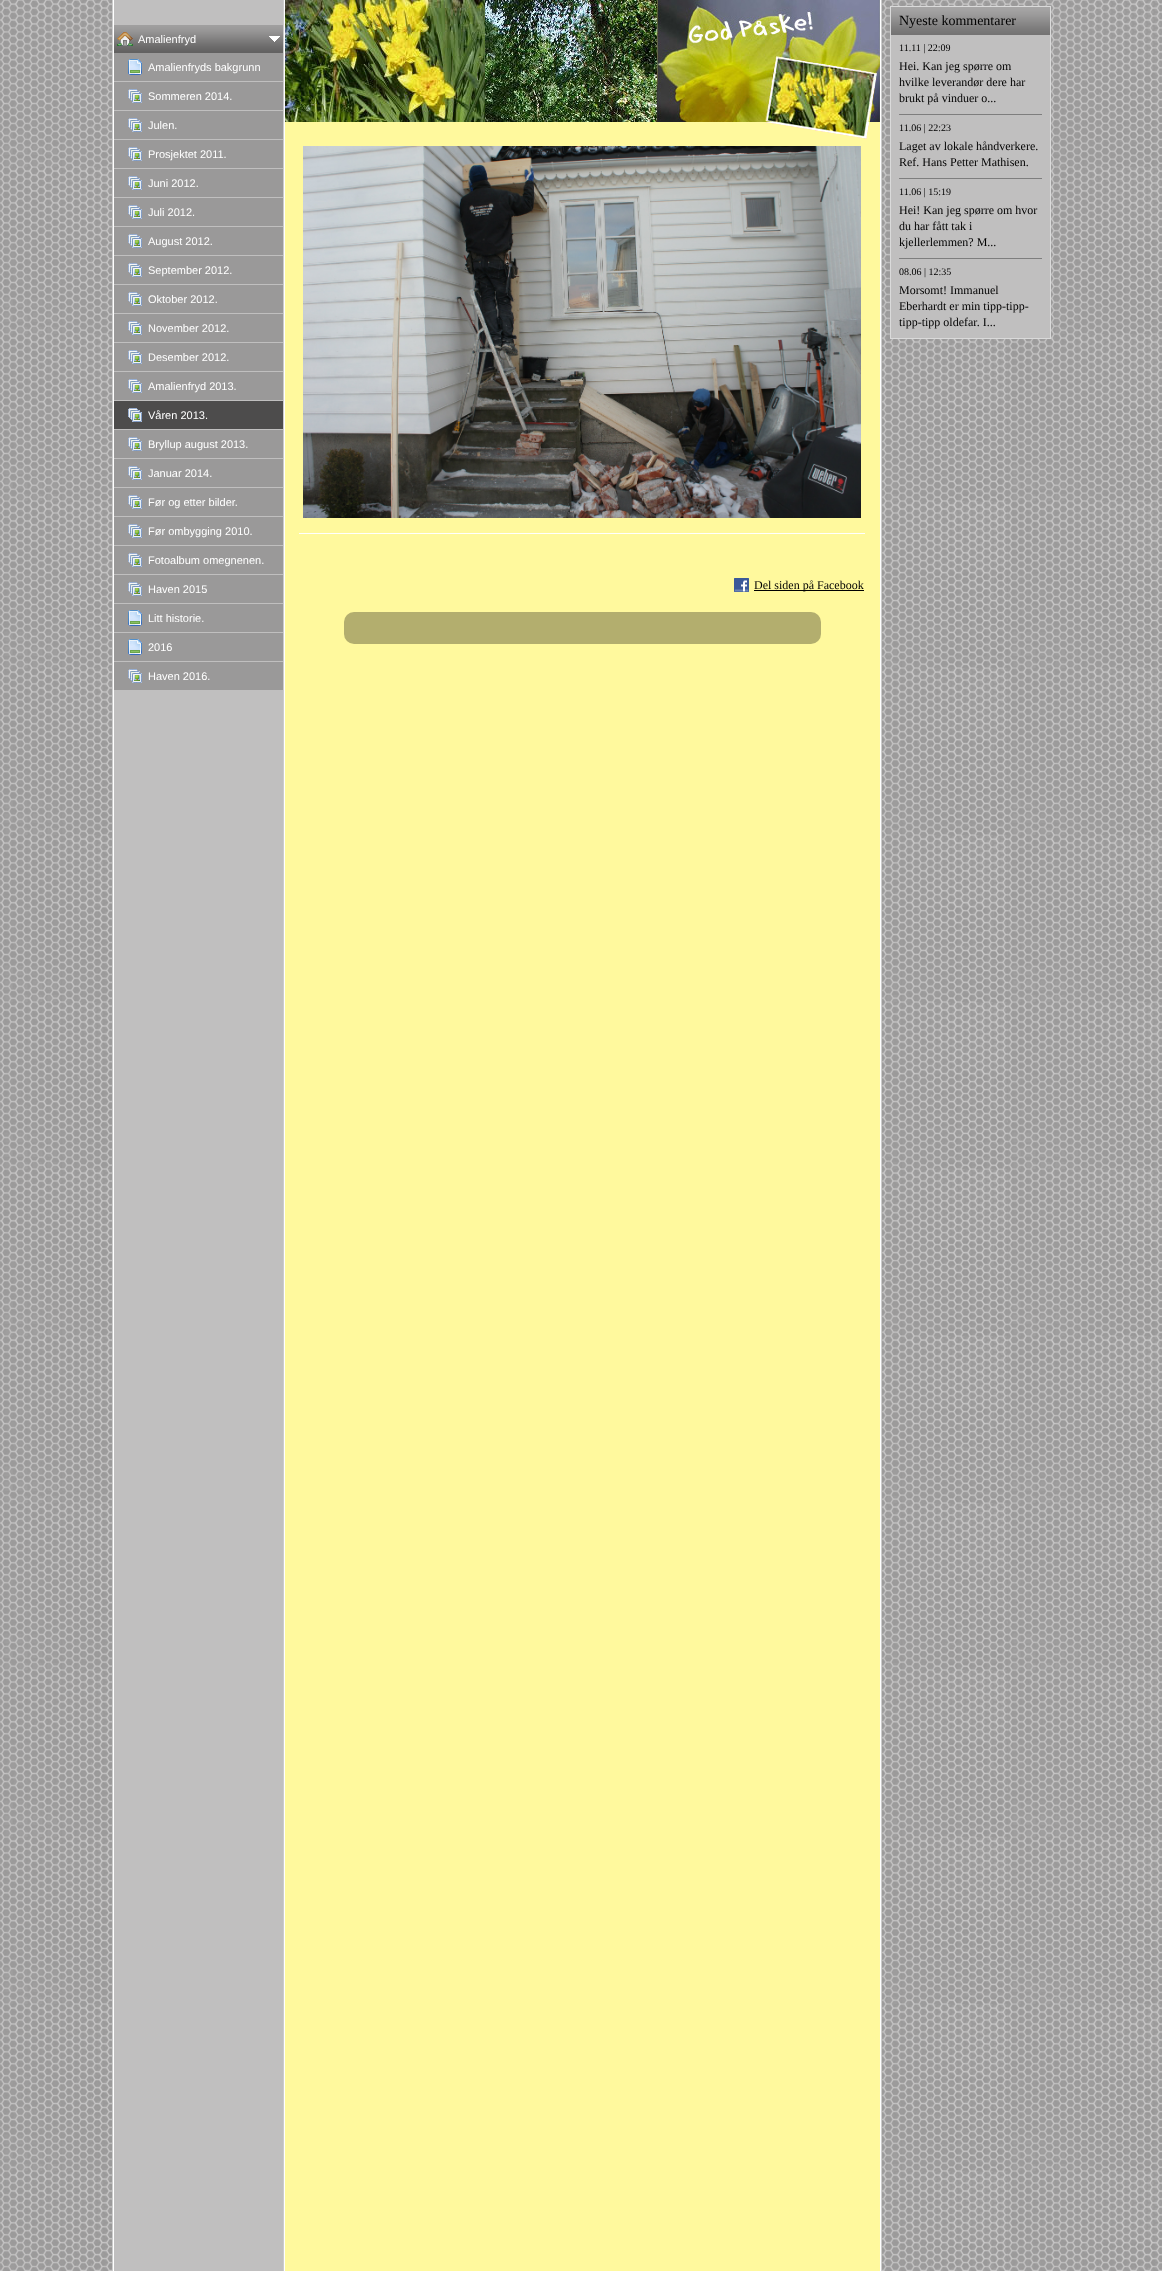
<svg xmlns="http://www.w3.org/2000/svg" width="1162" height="2271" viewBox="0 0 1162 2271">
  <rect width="100%" height="100%" fill="#c0bfbf"/>
  <image x="0" y="0" width="1162" height="2271" href="img1.png"/>
  <rect x="113" y="0" width="768" height="2271" fill="#ffffff"/>
  <rect x="112" y="0" width="1" height="2271" fill="#cccccc"/>
  <rect x="114" y="0" width="169" height="2271" fill="#c0bfbf"/>
  <image x="114" y="25" width="169" height="28" href="img2.png"/>
  <image x="117" y="32" width="16" height="14" href="img3.png"/>
  <image x="269" y="36" width="11" height="6" href="img4.png"/>
  <text x="138" y="43" font-family="Liberation Sans" font-size="11" fill="#ffffff">Amalienfryd</text>
  <rect x="114" y="53" width="169" height="28" fill="#9a9999"/>
  <image x="128" y="59" width="14" height="16" href="img5.png"/>
  <text x="148" y="71" font-family="Liberation Sans" font-size="11" fill="#ffffff">Amalienfryds bakgrunn</text>
  <rect x="114" y="82" width="169" height="28" fill="#9a9999"/>
  <image x="128" y="89" width="14" height="14" href="img6.png"/>
  <text x="148" y="100" font-family="Liberation Sans" font-size="11" fill="#ffffff">Sommeren 2014.</text>
  <rect x="114" y="111" width="169" height="28" fill="#9a9999"/>
  <image x="128" y="118" width="14" height="14" href="img6.png"/>
  <text x="148" y="129" font-family="Liberation Sans" font-size="11" fill="#ffffff">Julen.</text>
  <rect x="114" y="140" width="169" height="28" fill="#9a9999"/>
  <image x="128" y="147" width="14" height="14" href="img6.png"/>
  <text x="148" y="158" font-family="Liberation Sans" font-size="11" fill="#ffffff">Prosjektet 2011.</text>
  <rect x="114" y="169" width="169" height="28" fill="#9a9999"/>
  <image x="128" y="176" width="14" height="14" href="img6.png"/>
  <text x="148" y="187" font-family="Liberation Sans" font-size="11" fill="#ffffff">Juni 2012.</text>
  <rect x="114" y="198" width="169" height="28" fill="#9a9999"/>
  <image x="128" y="205" width="14" height="14" href="img6.png"/>
  <text x="148" y="216" font-family="Liberation Sans" font-size="11" fill="#ffffff">Juli 2012.</text>
  <rect x="114" y="227" width="169" height="28" fill="#9a9999"/>
  <image x="128" y="234" width="14" height="14" href="img6.png"/>
  <text x="148" y="245" font-family="Liberation Sans" font-size="11" fill="#ffffff">August 2012.</text>
  <rect x="114" y="256" width="169" height="28" fill="#9a9999"/>
  <image x="128" y="263" width="14" height="14" href="img6.png"/>
  <text x="148" y="274" font-family="Liberation Sans" font-size="11" fill="#ffffff">September 2012.</text>
  <rect x="114" y="285" width="169" height="28" fill="#9a9999"/>
  <image x="128" y="292" width="14" height="14" href="img6.png"/>
  <text x="148" y="303" font-family="Liberation Sans" font-size="11" fill="#ffffff">Oktober 2012.</text>
  <rect x="114" y="314" width="169" height="28" fill="#9a9999"/>
  <image x="128" y="321" width="14" height="14" href="img6.png"/>
  <text x="148" y="332" font-family="Liberation Sans" font-size="11" fill="#ffffff">November 2012.</text>
  <rect x="114" y="343" width="169" height="28" fill="#9a9999"/>
  <image x="128" y="350" width="14" height="14" href="img6.png"/>
  <text x="148" y="361" font-family="Liberation Sans" font-size="11" fill="#ffffff">Desember 2012.</text>
  <rect x="114" y="372" width="169" height="28" fill="#9a9999"/>
  <image x="128" y="379" width="14" height="14" href="img6.png"/>
  <text x="148" y="390" font-family="Liberation Sans" font-size="11" fill="#ffffff">Amalienfryd 2013.</text>
  <rect x="114" y="401" width="169" height="28" fill="#4d4c4c"/>
  <image x="128" y="408" width="14" height="14" href="img7.png"/>
  <text x="148" y="419" font-family="Liberation Sans" font-size="11" fill="#ffffff">Våren 2013.</text>
  <rect x="114" y="430" width="169" height="28" fill="#9a9999"/>
  <image x="128" y="437" width="14" height="14" href="img6.png"/>
  <text x="148" y="448" font-family="Liberation Sans" font-size="11" fill="#ffffff">Bryllup august 2013.</text>
  <rect x="114" y="459" width="169" height="28" fill="#9a9999"/>
  <image x="128" y="466" width="14" height="14" href="img6.png"/>
  <text x="148" y="477" font-family="Liberation Sans" font-size="11" fill="#ffffff">Januar 2014.</text>
  <rect x="114" y="488" width="169" height="28" fill="#9a9999"/>
  <image x="128" y="495" width="14" height="14" href="img6.png"/>
  <text x="148" y="506" font-family="Liberation Sans" font-size="11" fill="#ffffff">Før og etter bilder.</text>
  <rect x="114" y="517" width="169" height="28" fill="#9a9999"/>
  <image x="128" y="524" width="14" height="14" href="img6.png"/>
  <text x="148" y="535" font-family="Liberation Sans" font-size="11" fill="#ffffff">Før ombygging 2010.</text>
  <rect x="114" y="546" width="169" height="28" fill="#9a9999"/>
  <image x="128" y="553" width="14" height="14" href="img6.png"/>
  <text x="148" y="564" font-family="Liberation Sans" font-size="11" fill="#ffffff">Fotoalbum omegnenen.</text>
  <rect x="114" y="575" width="169" height="28" fill="#9a9999"/>
  <image x="128" y="582" width="14" height="14" href="img6.png"/>
  <text x="148" y="593" font-family="Liberation Sans" font-size="11" fill="#ffffff">Haven 2015</text>
  <rect x="114" y="604" width="169" height="28" fill="#9a9999"/>
  <image x="128" y="610" width="14" height="16" href="img5.png"/>
  <text x="148" y="622" font-family="Liberation Sans" font-size="11" fill="#ffffff">Litt historie.</text>
  <rect x="114" y="633" width="169" height="28" fill="#9a9999"/>
  <image x="128" y="639" width="14" height="16" href="img5.png"/>
  <text x="148" y="651" font-family="Liberation Sans" font-size="11" fill="#ffffff">2016</text>
  <rect x="114" y="662" width="169" height="28" fill="#9a9999"/>
  <image x="128" y="669" width="14" height="14" href="img6.png"/>
  <text x="148" y="680" font-family="Liberation Sans" font-size="11" fill="#ffffff">Haven 2016.</text>
  <rect x="283" y="0" width="1" height="2271" fill="#cccccc"/>
  <rect x="285" y="122" width="595" height="2149" fill="#fff99d"/>
  <image x="285" y="0" width="595" height="122" href="img8.png"/>
  <image x="766" y="122" width="103" height="17" href="img9.png"/>
  <image x="303" y="146" width="558" height="372" href="img10.png"/>
  <rect x="299" y="533" width="566" height="1" fill="#ffffff"/>
  <image x="734" y="578" width="15" height="14" href="img11.png"/>
  <rect x="754" y="590" width="110" height="1" fill="#000000"/>
  <text x="754" y="589" font-family="Liberation Serif" font-size="12" fill="#000000">Del siden på Facebook</text>
  <rect x="344" y="612" width="477" height="32" rx="10" fill="#b3ae6e"/>
  <rect x="881" y="0" width="1" height="2271" fill="#cccccc"/>
  <rect x="890.5" y="6.5" width="160" height="332" fill="#c0bfbf" stroke="#dadada"/>
  <image x="891" y="7" width="159" height="28" href="img12.png"/>
  <text x="899" y="25" font-family="Liberation Serif" font-size="14" fill="#000000">Nyeste kommentarer</text>
  <text x="899" y="51" font-family="Liberation Serif" font-size="10" fill="#000000">11.11 | 22:09</text>
  <text x="899" y="70" font-family="Liberation Serif" font-size="12" fill="#000000">Hei. Kan jeg spørre om</text>
  <text x="899" y="86" font-family="Liberation Serif" font-size="12" fill="#000000">hvilke leverandør dere har</text>
  <text x="899" y="102" font-family="Liberation Serif" font-size="12" fill="#000000">brukt på vinduer o...</text>
  <image x="899" y="114" width="143" height="1" href="img13.png"/>
  <text x="899" y="131" font-family="Liberation Serif" font-size="10" fill="#000000">11.06 | 22:23</text>
  <text x="899" y="150" font-family="Liberation Serif" font-size="12" fill="#000000">Laget av lokale håndverkere.</text>
  <text x="899" y="166" font-family="Liberation Serif" font-size="12" fill="#000000">Ref. Hans Petter Mathisen.</text>
  <image x="899" y="178" width="143" height="1" href="img13.png"/>
  <text x="899" y="195" font-family="Liberation Serif" font-size="10" fill="#000000">11.06 | 15:19</text>
  <text x="899" y="214" font-family="Liberation Serif" font-size="12" fill="#000000">Hei! Kan jeg spørre om hvor</text>
  <text x="899" y="230" font-family="Liberation Serif" font-size="12" fill="#000000">du har fått tak i</text>
  <text x="899" y="246" font-family="Liberation Serif" font-size="12" fill="#000000">kjellerlemmen? M...</text>
  <image x="899" y="258" width="143" height="1" href="img13.png"/>
  <text x="899" y="275" font-family="Liberation Serif" font-size="10" fill="#000000">08.06 | 12:35</text>
  <text x="899" y="294" font-family="Liberation Serif" font-size="12" fill="#000000">Morsomt! Immanuel</text>
  <text x="899" y="310" font-family="Liberation Serif" font-size="12" fill="#000000">Eberhardt er min tipp-tipp-</text>
  <text x="899" y="326" font-family="Liberation Serif" font-size="12" fill="#000000">tipp-tipp oldefar. I...</text>
</svg>
